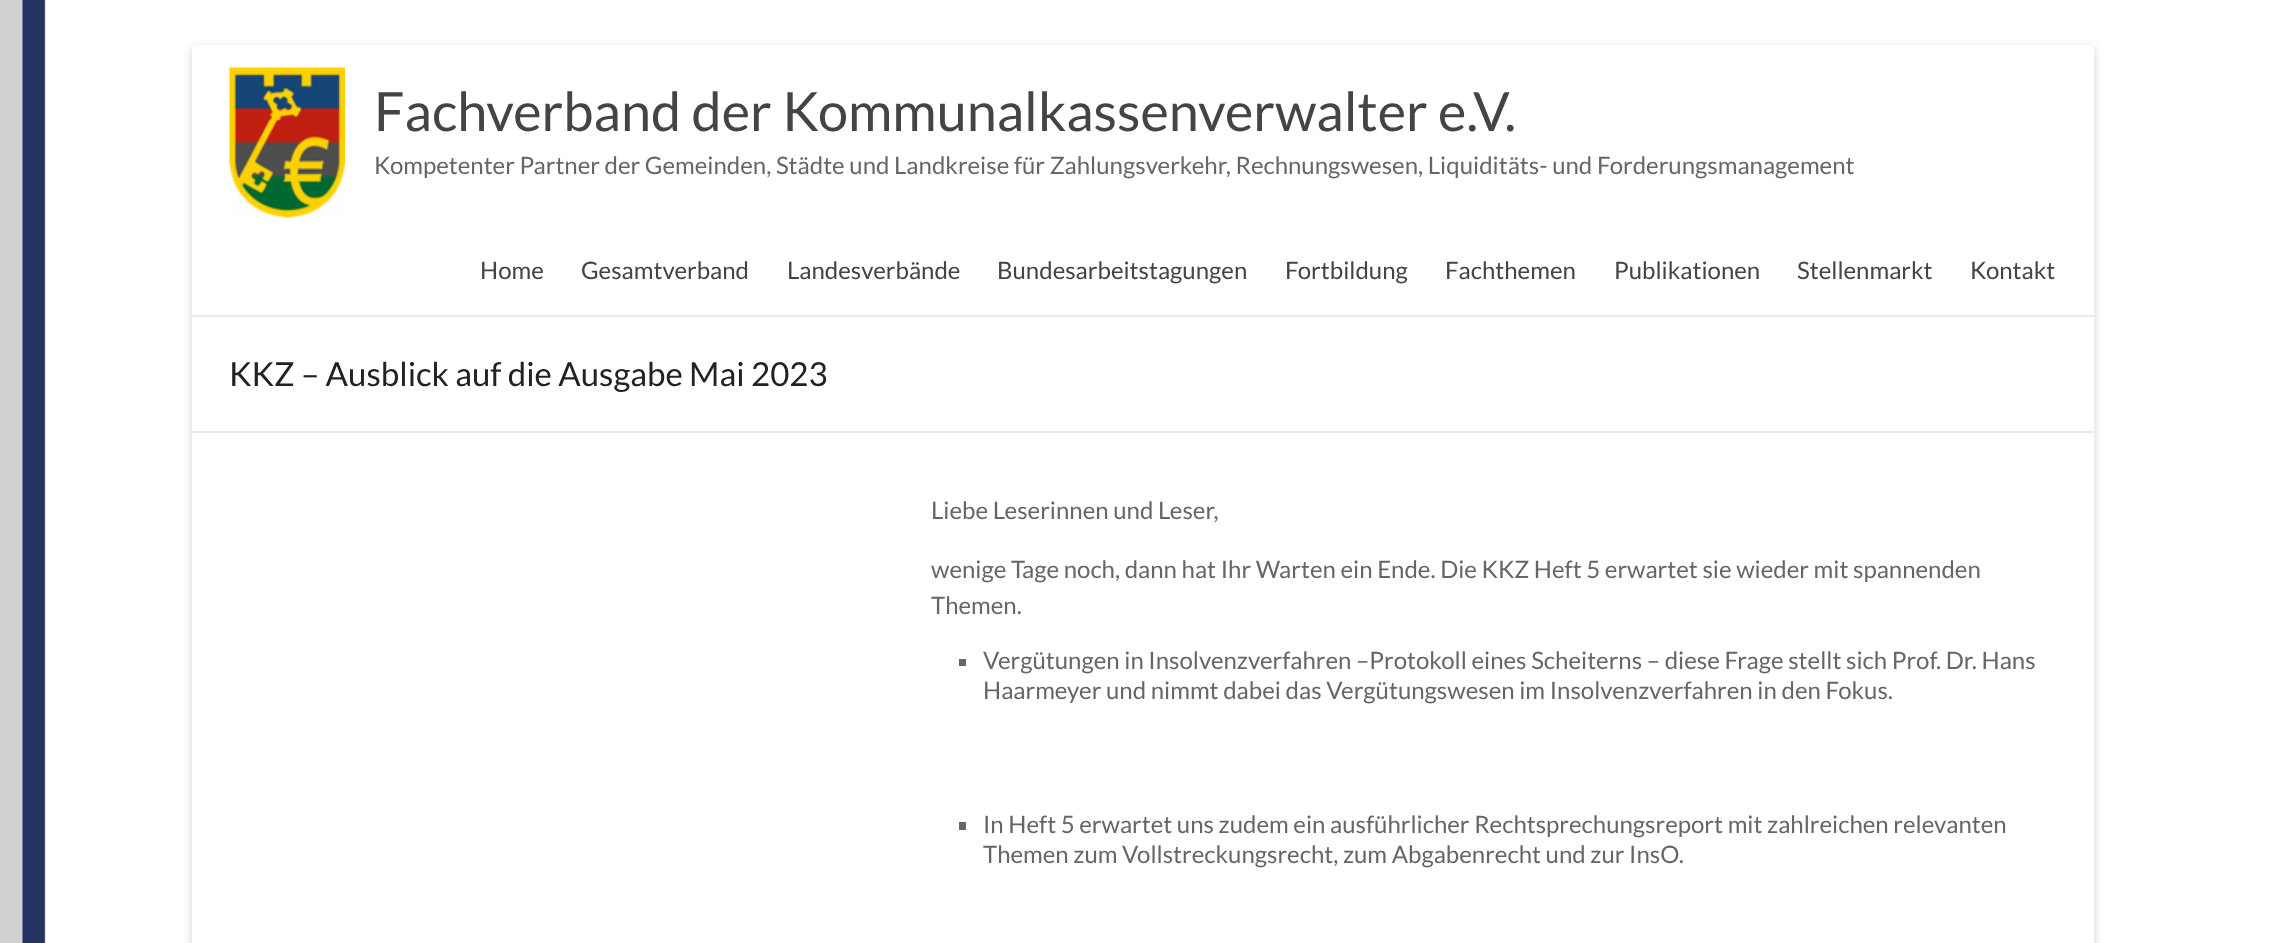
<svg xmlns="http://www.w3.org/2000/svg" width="2284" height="943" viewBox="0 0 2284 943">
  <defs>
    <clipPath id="clip1"><path d="M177 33H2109V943H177ZM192 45H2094V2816H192Z" clip-rule="evenodd"/></clipPath>
    <filter id="blur1" x="-50%" y="-200%" width="200%" height="500%"><feGaussianBlur stdDeviation="4.5"/></filter>
  </defs>
  <rect width="100%" height="100%" fill="#ffffff"/>
  <image x="0" y="0" width="2284" height="943" href="img1.png"/>
  <g clip-path="url(#clip1)">
    <rect x="192" y="48" width="1902" height="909" fill="#646464" fill-opacity="0.3" filter="url(#blur1)"/>
  </g>
  <rect x="192" y="315" width="1902" height="2" fill="#eaeaea"/>
  <image x="229" y="67" width="116" height="151" href="img2.png"/>
  <text x="374" y="131" font-family="Lato" font-size="54" fill="#444444">Fachverband der Kommunalkassenverwalter e.V.</text>
  <text x="374" y="174" font-family="Lato" font-size="24" fill="#666666">Kompetenter Partner der Gemeinden, Städte und Landkreise für Zahlungsverkehr, Rechnungswesen, Liquiditäts- und Forderungsmanagement</text>
  <text x="480" y="279" font-family="Lato" font-size="24" fill="#444444">Home</text>
  <text x="581" y="279" font-family="Lato" font-size="24" fill="#444444">Gesamtverband</text>
  <text x="787" y="279" font-family="Lato" font-size="24" fill="#444444">Landesverbände</text>
  <text x="997" y="279" font-family="Lato" font-size="24" fill="#444444">Bundesarbeitstagungen</text>
  <text x="1285" y="279" font-family="Lato" font-size="24" fill="#444444">Fortbildung</text>
  <text x="1445" y="279" font-family="Lato" font-size="24" fill="#444444">Fachthemen</text>
  <text x="1614" y="279" font-family="Lato" font-size="24" fill="#444444">Publikationen</text>
  <text x="1797" y="279" font-family="Lato" font-size="24" fill="#444444">Stellenmarkt</text>
  <text x="1970" y="279" font-family="Lato" font-size="24" fill="#444444">Kontakt</text>
  <rect x="192" y="431" width="1902" height="2" fill="#eaeaea"/>
  <text x="229" y="386" font-family="Lato" font-size="33" fill="#222222">KKZ – Ausblick auf die Ausgabe Mai 2023</text>
  <text x="931" y="519" font-family="Lato" font-size="24" fill="#666666">Liebe Leserinnen und Leser,</text>
  <text x="931" y="578" font-family="Lato" font-size="24" fill="#666666">wenige Tage noch, dann hat Ihr Warten ein Ende. Die KKZ Heft 5 erwartet sie wieder mit spannenden</text>
  <text x="931" y="614" font-family="Lato" font-size="24" fill="#666666">Themen.</text>
  <rect x="959" y="659" width="7" height="7" fill="#666666"/>
  <text x="983" y="669" font-family="Lato" font-size="24" fill="#666666">Vergütungen in Insolvenzverfahren –Protokoll eines Scheiterns – diese Frage stellt sich Prof. Dr. Hans</text>
  <text x="983" y="699" font-family="Lato" font-size="24" fill="#666666">Haarmeyer und nimmt dabei das Vergütungswesen im Insolvenzverfahren in den Fokus.</text>
  <rect x="959" y="822" width="7" height="8" fill="#666666"/>
  <text x="983" y="833" font-family="Lato" font-size="24" fill="#666666">In Heft 5 erwartet uns zudem ein ausführlicher Rechtsprechungsreport mit zahlreichen relevanten</text>
  <text x="983" y="863" font-family="Lato" font-size="24" fill="#666666">Themen zum Vollstreckungsrecht, zum Abgabenrecht und zur InsO.</text>
</svg>
